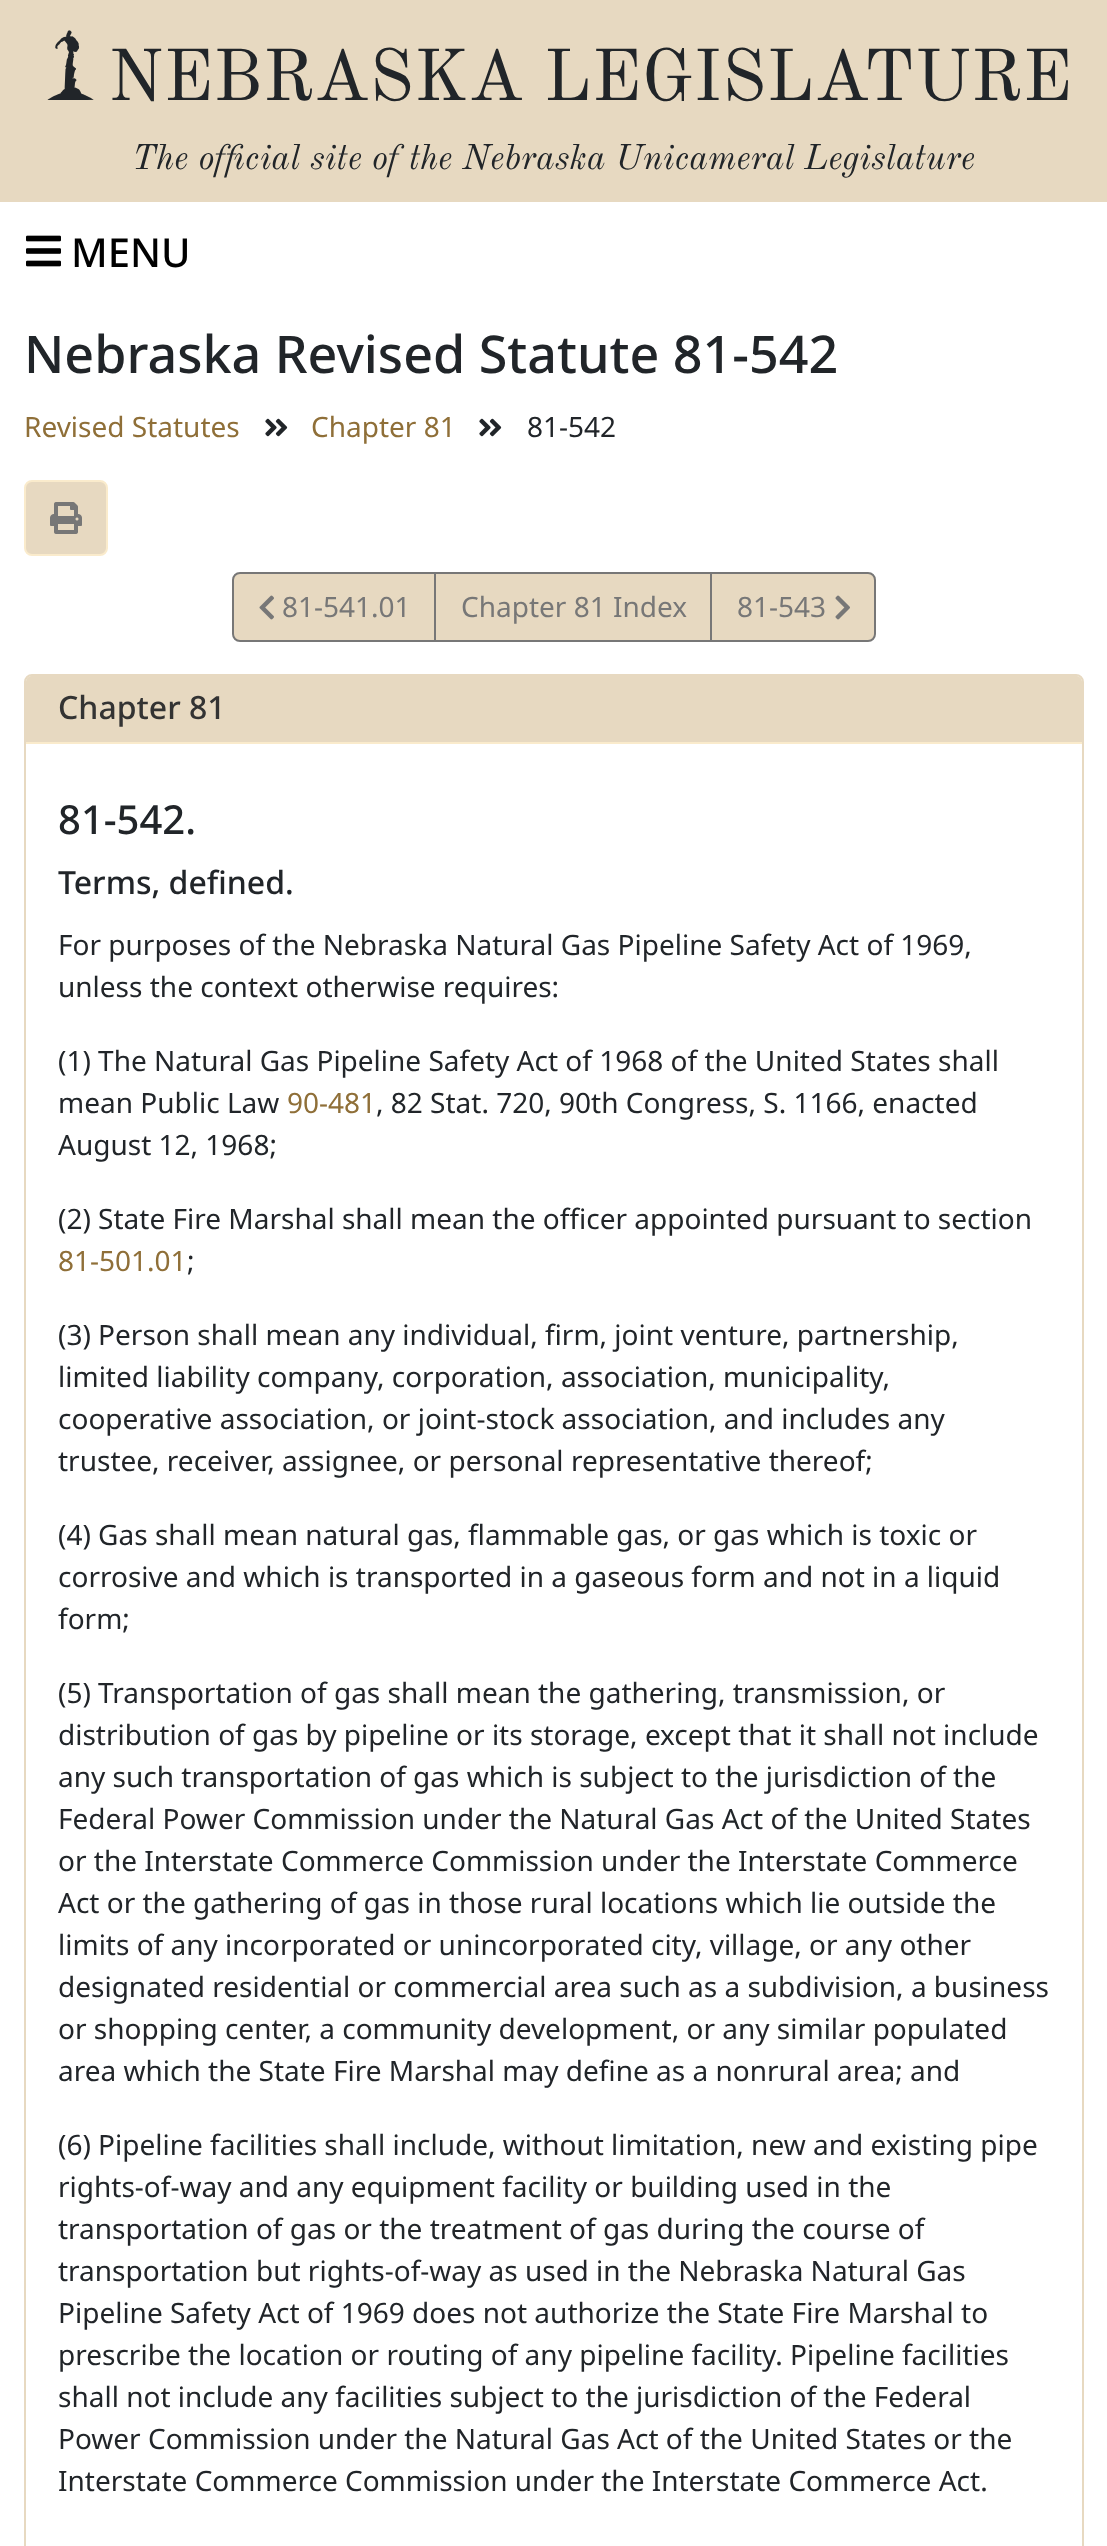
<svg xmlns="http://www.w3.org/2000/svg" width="1107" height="2546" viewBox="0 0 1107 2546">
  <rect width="100%" height="100%" fill="#ffffff"/>
  <rect x="0" y="0" width="1107" height="202" fill="#e7d9c1"/>
  <image x="47" y="30" width="47" height="70" href="img1.png"/>
  <text x="108" y="100" font-family="Old Standard TT" font-size="72" fill="#212529">NEBRASKA LEGISLATURE</text>
  <text x="132" y="169" font-family="Old Standard TT" font-size="35" font-style="italic" fill="#212529">The official site of the Nebraska Unicameral Legislature</text>
  <image x="26" y="235" width="35" height="32" href="img2.png"/>
  <text x="71" y="267" font-family="Noto Sans" font-size="40" font-weight="500" fill="#000000">MENU</text>
  <text x="24" y="373" font-family="Noto Sans" font-size="52" font-weight="500" fill="#212529">Nebraska Revised Statute 81-542</text>
  <text x="24" y="437" font-family="Noto Sans" font-size="28" fill="#8f6f38">Revised Statutes</text>
  <image x="265" y="418" width="23" height="19" href="img3.png"/>
  <text x="311" y="437" font-family="Noto Sans" font-size="28" fill="#8f6f38">Chapter 81</text>
  <image x="479" y="418" width="23" height="19" href="img3.png"/>
  <text x="527" y="437" font-family="Noto Sans" font-size="28" fill="#212529">81-542</text>
  <rect x="25" y="481" width="82" height="74" rx="7" fill="#e7d9c1" stroke="#faebcc" stroke-width="2"/>
  <image x="50" y="502" width="32" height="32" href="img4.png"/>
  <path d="M240 573H435V641H240C236 641 233 638 233 634V580C233 576 236 573 240 573Z" fill="#e7d9c1" stroke="#777777" stroke-width="2"/>
  <image x="259" y="595" width="15" height="25" href="img5.png"/>
  <text x="282" y="617" font-family="Noto Sans" font-size="28" fill="#777777">81-541.01</text>
  <rect x="435" y="573" width="276" height="68" fill="#e7d9c1" stroke="#777777" stroke-width="2"/>
  <text x="461" y="617" font-family="Noto Sans" font-size="28" fill="#777777">Chapter 81 Index</text>
  <path d="M711 573H868C872 573 875 576 875 580V634C875 638 872 641 868 641H711Z" fill="#e7d9c1" stroke="#777777" stroke-width="2"/>
  <text x="737" y="617" font-family="Noto Sans" font-size="28" fill="#777777">81-543</text>
  <image x="835" y="595" width="15" height="25" href="img6.png"/>
  <rect x="25" y="675" width="1058" height="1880" rx="7" fill="none" stroke="#e7d9c1" stroke-width="2"/>
  <path d="M32 676H1076C1079.5 676 1082 678.5 1082 682V744H26V682C26 678.5 28.5 676 32 676Z" fill="#e7d9c1"/>
  <rect x="26" y="742" width="1056" height="2" fill="#faebcc"/>
  <text x="58" y="719" font-family="Noto Sans" font-size="32" font-weight="500" fill="#333333">Chapter 81</text>
  <text x="58" y="834" font-family="Noto Sans" font-size="40" font-weight="500" fill="#212529">81-542.</text>
  <text x="58" y="894" font-family="Noto Sans" font-size="32" font-weight="500" fill="#212529">Terms, defined.</text>
  <text x="58" y="955" font-family="Noto Sans" font-size="28" fill="#212529">For purposes of the Nebraska Natural Gas Pipeline Safety Act of 1969,</text>
  <text x="58" y="997" font-family="Noto Sans" font-size="28" fill="#212529">unless the context otherwise requires:</text>
  <text x="58" y="1071" font-family="Noto Sans" font-size="28" fill="#212529">(1) The Natural Gas Pipeline Safety Act of 1968 of the United States shall</text>
  <text x="58" y="1113" font-family="Noto Sans" font-size="28" fill="#212529">mean Public Law</text>
  <text x="287" y="1113" font-family="Noto Sans" font-size="28" fill="#8f6f38">90-481</text>
  <text x="376" y="1113" font-family="Noto Sans" font-size="28" fill="#212529">, 82 Stat. 720, 90th Congress, S. 1166, enacted</text>
  <text x="58" y="1155" font-family="Noto Sans" font-size="28" fill="#212529">August 12, 1968;</text>
  <text x="58" y="1229" font-family="Noto Sans" font-size="28" fill="#212529">(2) State Fire Marshal shall mean the officer appointed pursuant to section</text>
  <text x="58" y="1271" font-family="Noto Sans" font-size="28" fill="#8f6f38">81-501.01</text>
  <text x="187" y="1271" font-family="Noto Sans" font-size="28" fill="#212529">;</text>
  <text x="58" y="1345" font-family="Noto Sans" font-size="28" fill="#212529">(3) Person shall mean any individual, firm, joint venture, partnership,</text>
  <text x="58" y="1387" font-family="Noto Sans" font-size="28" fill="#212529">limited liability company, corporation, association, municipality,</text>
  <text x="58" y="1429" font-family="Noto Sans" font-size="28" fill="#212529">cooperative association, or joint-stock association, and includes any</text>
  <text x="58" y="1471" font-family="Noto Sans" font-size="28" fill="#212529">trustee, receiver, assignee, or personal representative thereof;</text>
  <text x="58" y="1545" font-family="Noto Sans" font-size="28" fill="#212529">(4) Gas shall mean natural gas, flammable gas, or gas which is toxic or</text>
  <text x="58" y="1587" font-family="Noto Sans" font-size="28" fill="#212529">corrosive and which is transported in a gaseous form and not in a liquid</text>
  <text x="58" y="1629" font-family="Noto Sans" font-size="28" fill="#212529">form;</text>
  <text x="58" y="1703" font-family="Noto Sans" font-size="28" fill="#212529">(5) Transportation of gas shall mean the gathering, transmission, or</text>
  <text x="58" y="1745" font-family="Noto Sans" font-size="28" fill="#212529">distribution of gas by pipeline or its storage, except that it shall not include</text>
  <text x="58" y="1787" font-family="Noto Sans" font-size="28" fill="#212529">any such transportation of gas which is subject to the jurisdiction of the</text>
  <text x="58" y="1829" font-family="Noto Sans" font-size="28" fill="#212529">Federal Power Commission under the Natural Gas Act of the United States</text>
  <text x="58" y="1871" font-family="Noto Sans" font-size="28" fill="#212529">or the Interstate Commerce Commission under the Interstate Commerce</text>
  <text x="58" y="1913" font-family="Noto Sans" font-size="28" fill="#212529">Act or the gathering of gas in those rural locations which lie outside the</text>
  <text x="58" y="1955" font-family="Noto Sans" font-size="28" fill="#212529">limits of any incorporated or unincorporated city, village, or any other</text>
  <text x="58" y="1997" font-family="Noto Sans" font-size="28" fill="#212529">designated residential or commercial area such as a subdivision, a business</text>
  <text x="58" y="2039" font-family="Noto Sans" font-size="28" fill="#212529">or shopping center, a community development, or any similar populated</text>
  <text x="58" y="2081" font-family="Noto Sans" font-size="28" fill="#212529">area which the State Fire Marshal may define as a nonrural area; and</text>
  <text x="58" y="2155" font-family="Noto Sans" font-size="28" fill="#212529">(6) Pipeline facilities shall include, without limitation, new and existing pipe</text>
  <text x="58" y="2197" font-family="Noto Sans" font-size="28" fill="#212529">rights-of-way and any equipment facility or building used in the</text>
  <text x="58" y="2239" font-family="Noto Sans" font-size="28" fill="#212529">transportation of gas or the treatment of gas during the course of</text>
  <text x="58" y="2281" font-family="Noto Sans" font-size="28" fill="#212529">transportation but rights-of-way as used in the Nebraska Natural Gas</text>
  <text x="58" y="2323" font-family="Noto Sans" font-size="28" fill="#212529">Pipeline Safety Act of 1969 does not authorize the State Fire Marshal to</text>
  <text x="58" y="2365" font-family="Noto Sans" font-size="28" fill="#212529">prescribe the location or routing of any pipeline facility. Pipeline facilities</text>
  <text x="58" y="2407" font-family="Noto Sans" font-size="28" fill="#212529">shall not include any facilities subject to the jurisdiction of the Federal</text>
  <text x="58" y="2449" font-family="Noto Sans" font-size="28" fill="#212529">Power Commission under the Natural Gas Act of the United States or the</text>
  <text x="58" y="2491" font-family="Noto Sans" font-size="28" fill="#212529">Interstate Commerce Commission under the Interstate Commerce Act.</text>
</svg>
